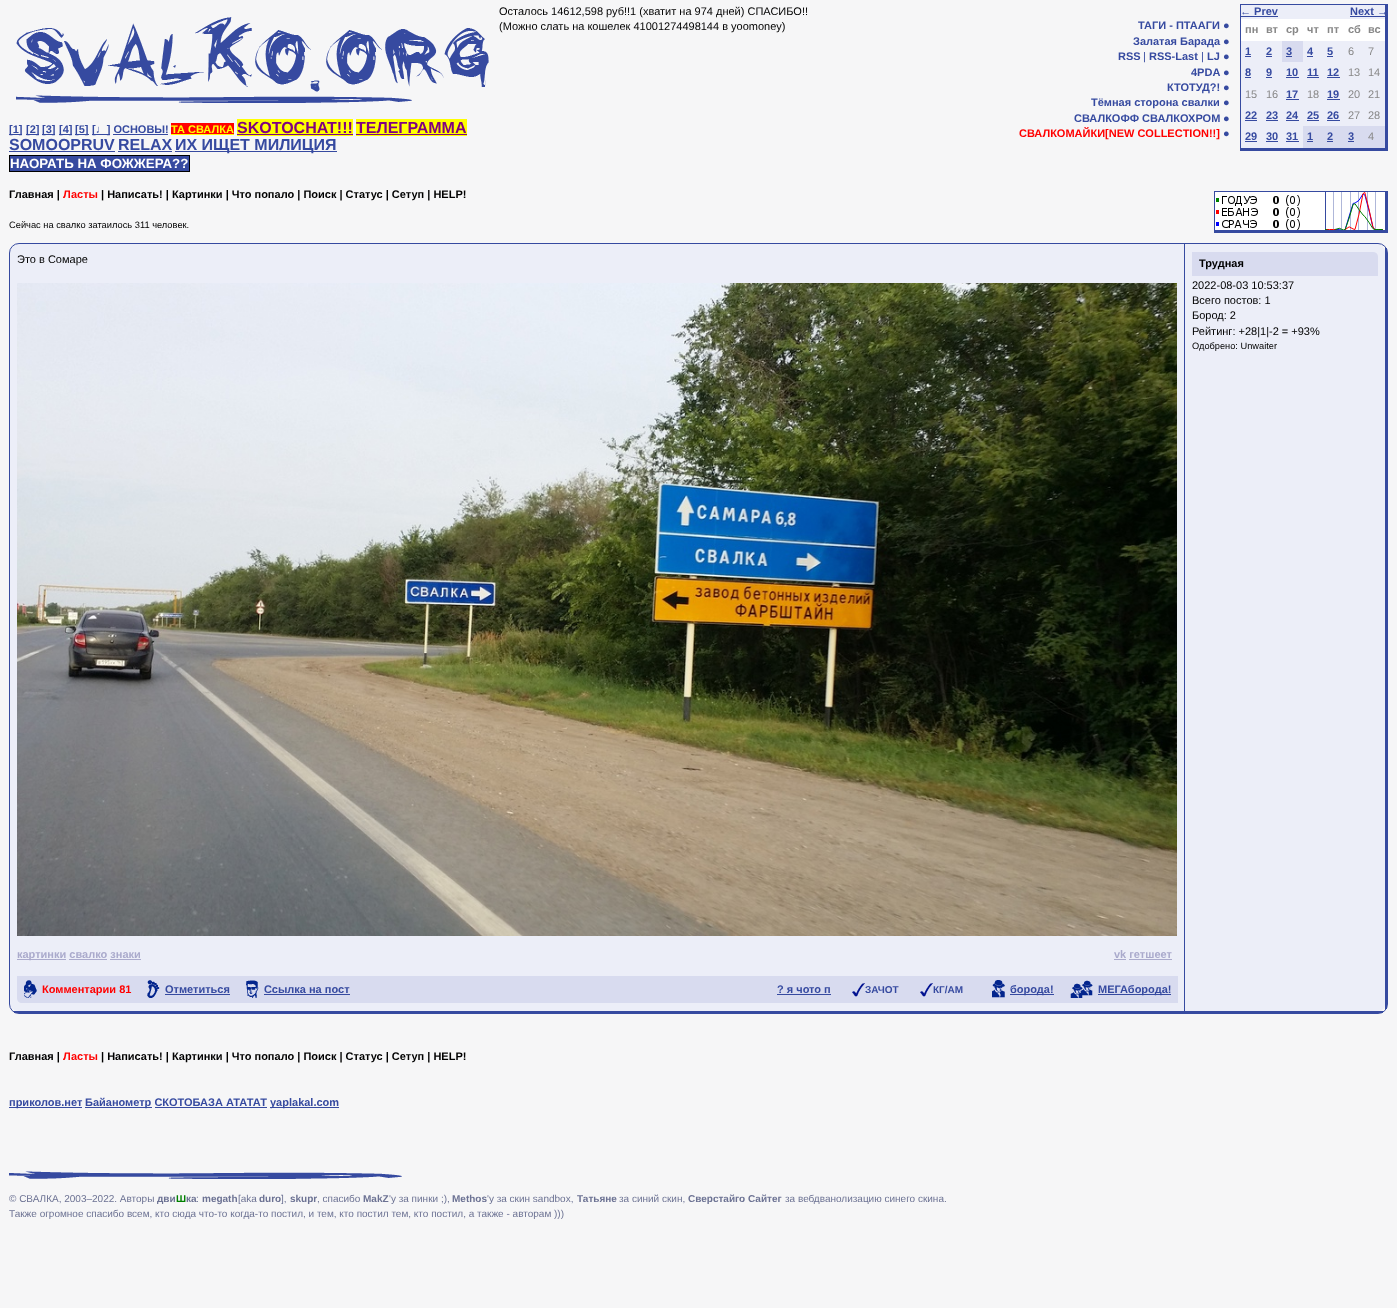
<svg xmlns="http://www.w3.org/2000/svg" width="1397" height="1308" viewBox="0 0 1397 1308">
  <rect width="100%" height="100%" fill="#f6f6f7"/>
  <text x="499" y="15" font-family="Liberation Sans" font-size="11" fill="#000000">Осталось 14612,598 руб!!1 (хватит на 974 дней) СПАСИБО!!</text>
  <text x="499" y="30" font-family="Liberation Sans" font-size="11" fill="#000000">(Можно слать на кошелек 41001274498144 в yoomoney)</text>
  <text x="1138" y="29" font-family="Liberation Sans" font-size="11" font-weight="bold" fill="#364aa0">ТАГИ - ПТААГИ</text>
  <text x="1223" y="29" font-family="Liberation Sans" font-size="11" fill="#364aa0">●</text>
  <text x="1133" y="45" font-family="Liberation Sans" font-size="11" font-weight="bold" fill="#364aa0">Залатая Барада</text>
  <text x="1223" y="45" font-family="Liberation Sans" font-size="11" fill="#364aa0">●</text>
  <text x="1118" y="60" font-family="Liberation Sans" font-size="11" font-weight="bold" fill="#364aa0">RSS</text>
  <text x="1143" y="60" font-family="Liberation Sans" font-size="11" fill="#364aa0">|</text>
  <text x="1149" y="60" font-family="Liberation Sans" font-size="11" font-weight="bold" fill="#364aa0">RSS-Last</text>
  <text x="1201" y="60" font-family="Liberation Sans" font-size="11" fill="#364aa0">|</text>
  <text x="1207" y="60" font-family="Liberation Sans" font-size="11" font-weight="bold" fill="#364aa0">LJ</text>
  <text x="1223" y="60" font-family="Liberation Sans" font-size="11" fill="#364aa0">●</text>
  <text x="1191" y="76" font-family="Liberation Sans" font-size="11" font-weight="bold" fill="#364aa0">4PDA</text>
  <text x="1223" y="76" font-family="Liberation Sans" font-size="11" fill="#364aa0">●</text>
  <text x="1167" y="91" font-family="Liberation Sans" font-size="11" font-weight="bold" fill="#364aa0">КТОТУД?!</text>
  <text x="1223" y="91" font-family="Liberation Sans" font-size="11" fill="#364aa0">●</text>
  <text x="1091" y="106" font-family="Liberation Sans" font-size="11" font-weight="bold" fill="#364aa0">Тёмная сторона свалки</text>
  <text x="1223" y="106" font-family="Liberation Sans" font-size="11" fill="#364aa0">●</text>
  <text x="1074" y="122" font-family="Liberation Sans" font-size="11" font-weight="bold" fill="#364aa0">СВАЛКОФФ СВАЛКОХРОМ</text>
  <text x="1223" y="122" font-family="Liberation Sans" font-size="11" fill="#364aa0">●</text>
  <text x="1019" y="137" font-family="Liberation Sans" font-size="11" font-weight="bold" fill="#ff0000">СВАЛКОМАЙКИ[NEW COLLECTION!!]</text>
  <text x="1223" y="137" font-family="Liberation Sans" font-size="11" fill="#364aa0">●</text>
  <rect x="1241" y="5" width="144" height="143" fill="#eceef8"/>
  <rect x="1240" y="4" width="148" height="1" fill="#364aa0"/>
  <rect x="1240" y="4" width="1" height="147" fill="#364aa0"/>
  <rect x="1385" y="4" width="3" height="147" fill="#364aa0"/>
  <rect x="1240" y="148" width="148" height="3" fill="#364aa0"/>
  <text x="1240" y="15" font-family="Liberation Sans" font-size="11" font-weight="bold" fill="#364aa0">← Prev</text>
  <rect x="1240" y="16" width="38" height="1" fill="#364aa0"/>
  <text x="1350" y="15" font-family="Liberation Sans" font-size="11" font-weight="bold" fill="#364aa0">Next →</text>
  <rect x="1350" y="16" width="38" height="1" fill="#364aa0"/>
  <rect x="1241" y="19" width="144" height="22" fill="#ffffff"/>
  <text x="1245" y="33" font-family="Liberation Sans" font-size="11" font-weight="bold" fill="#888888">пн</text>
  <text x="1266" y="33" font-family="Liberation Sans" font-size="11" font-weight="bold" fill="#888888">вт</text>
  <text x="1286" y="33" font-family="Liberation Sans" font-size="11" font-weight="bold" fill="#888888">ср</text>
  <text x="1307" y="33" font-family="Liberation Sans" font-size="11" font-weight="bold" fill="#888888">чт</text>
  <text x="1327" y="33" font-family="Liberation Sans" font-size="11" font-weight="bold" fill="#888888">пт</text>
  <text x="1348" y="33" font-family="Liberation Sans" font-size="11" font-weight="bold" fill="#888888">сб</text>
  <text x="1368" y="33" font-family="Liberation Sans" font-size="11" font-weight="bold" fill="#888888">вс</text>
  <text x="1245" y="55" font-family="Liberation Sans" font-size="11" font-weight="bold" fill="#364aa0">1</text>
  <rect x="1245" y="56" width="6" height="1" fill="#364aa0"/>
  <text x="1266" y="55" font-family="Liberation Sans" font-size="11" font-weight="bold" fill="#364aa0">2</text>
  <rect x="1266" y="56" width="6" height="1" fill="#364aa0"/>
  <rect x="1282" y="41" width="21" height="21" fill="#d8dbef"/>
  <text x="1286" y="55" font-family="Liberation Sans" font-size="11" font-weight="bold" fill="#364aa0">3</text>
  <rect x="1286" y="56" width="6" height="1" fill="#364aa0"/>
  <text x="1307" y="55" font-family="Liberation Sans" font-size="11" font-weight="bold" fill="#364aa0">4</text>
  <rect x="1307" y="56" width="6" height="1" fill="#364aa0"/>
  <text x="1327" y="55" font-family="Liberation Sans" font-size="11" font-weight="bold" fill="#364aa0">5</text>
  <rect x="1327" y="56" width="6" height="1" fill="#364aa0"/>
  <text x="1348" y="55" font-family="Liberation Sans" font-size="11" fill="#888888">6</text>
  <text x="1368" y="55" font-family="Liberation Sans" font-size="11" fill="#888888">7</text>
  <text x="1245" y="76" font-family="Liberation Sans" font-size="11" font-weight="bold" fill="#364aa0">8</text>
  <rect x="1245" y="77" width="6" height="1" fill="#364aa0"/>
  <text x="1266" y="76" font-family="Liberation Sans" font-size="11" font-weight="bold" fill="#364aa0">9</text>
  <rect x="1266" y="77" width="6" height="1" fill="#364aa0"/>
  <text x="1286" y="76" font-family="Liberation Sans" font-size="11" font-weight="bold" fill="#364aa0">10</text>
  <rect x="1286" y="77" width="13" height="1" fill="#364aa0"/>
  <text x="1307" y="76" font-family="Liberation Sans" font-size="11" font-weight="bold" fill="#364aa0">11</text>
  <rect x="1307" y="77" width="12" height="1" fill="#364aa0"/>
  <text x="1327" y="76" font-family="Liberation Sans" font-size="11" font-weight="bold" fill="#364aa0">12</text>
  <rect x="1327" y="77" width="13" height="1" fill="#364aa0"/>
  <text x="1348" y="76" font-family="Liberation Sans" font-size="11" fill="#888888">13</text>
  <text x="1368" y="76" font-family="Liberation Sans" font-size="11" fill="#888888">14</text>
  <text x="1245" y="98" font-family="Liberation Sans" font-size="11" fill="#888888">15</text>
  <text x="1266" y="98" font-family="Liberation Sans" font-size="11" fill="#888888">16</text>
  <text x="1286" y="98" font-family="Liberation Sans" font-size="11" font-weight="bold" fill="#364aa0">17</text>
  <rect x="1286" y="99" width="13" height="1" fill="#364aa0"/>
  <text x="1307" y="98" font-family="Liberation Sans" font-size="11" fill="#888888">18</text>
  <text x="1327" y="98" font-family="Liberation Sans" font-size="11" font-weight="bold" fill="#364aa0">19</text>
  <rect x="1327" y="99" width="13" height="1" fill="#364aa0"/>
  <text x="1348" y="98" font-family="Liberation Sans" font-size="11" fill="#888888">20</text>
  <text x="1368" y="98" font-family="Liberation Sans" font-size="11" fill="#888888">21</text>
  <text x="1245" y="119" font-family="Liberation Sans" font-size="11" font-weight="bold" fill="#364aa0">22</text>
  <rect x="1245" y="120" width="12" height="1" fill="#364aa0"/>
  <text x="1266" y="119" font-family="Liberation Sans" font-size="11" font-weight="bold" fill="#364aa0">23</text>
  <rect x="1266" y="120" width="12" height="1" fill="#364aa0"/>
  <text x="1286" y="119" font-family="Liberation Sans" font-size="11" font-weight="bold" fill="#364aa0">24</text>
  <rect x="1286" y="120" width="13" height="1" fill="#364aa0"/>
  <text x="1307" y="119" font-family="Liberation Sans" font-size="11" font-weight="bold" fill="#364aa0">25</text>
  <rect x="1307" y="120" width="12" height="1" fill="#364aa0"/>
  <text x="1327" y="119" font-family="Liberation Sans" font-size="11" font-weight="bold" fill="#364aa0">26</text>
  <rect x="1327" y="120" width="13" height="1" fill="#364aa0"/>
  <text x="1348" y="119" font-family="Liberation Sans" font-size="11" fill="#888888">27</text>
  <text x="1368" y="119" font-family="Liberation Sans" font-size="11" fill="#888888">28</text>
  <text x="1245" y="140" font-family="Liberation Sans" font-size="11" font-weight="bold" fill="#364aa0">29</text>
  <rect x="1245" y="141" width="12" height="1" fill="#364aa0"/>
  <text x="1266" y="140" font-family="Liberation Sans" font-size="11" font-weight="bold" fill="#364aa0">30</text>
  <rect x="1266" y="141" width="12" height="1" fill="#364aa0"/>
  <text x="1286" y="140" font-family="Liberation Sans" font-size="11" font-weight="bold" fill="#364aa0">31</text>
  <rect x="1286" y="141" width="13" height="1" fill="#364aa0"/>
  <rect x="1303" y="126" width="82" height="22" fill="#d8dbef"/>
  <text x="1307" y="140" font-family="Liberation Sans" font-size="11" font-weight="bold" fill="#364aa0">1</text>
  <rect x="1307" y="141" width="6" height="1" fill="#364aa0"/>
  <text x="1327" y="140" font-family="Liberation Sans" font-size="11" font-weight="bold" fill="#364aa0">2</text>
  <rect x="1327" y="141" width="6" height="1" fill="#364aa0"/>
  <text x="1348" y="140" font-family="Liberation Sans" font-size="11" font-weight="bold" fill="#364aa0">3</text>
  <rect x="1348" y="141" width="6" height="1" fill="#364aa0"/>
  <text x="1368" y="140" font-family="Liberation Sans" font-size="11" fill="#888888">4</text>
  <image x="16" y="17" width="473" height="86" href="img1.png"/>
  <rect x="9" y="134" width="13" height="1" fill="#364aa0"/>
  <text x="9" y="133" font-family="Liberation Sans" font-size="11" font-weight="bold" fill="#364aa0">[1]</text>
  <rect x="26" y="134" width="13" height="1" fill="#364aa0"/>
  <text x="26" y="133" font-family="Liberation Sans" font-size="11" font-weight="bold" fill="#364aa0">[2]</text>
  <rect x="42" y="134" width="13" height="1" fill="#364aa0"/>
  <text x="42" y="133" font-family="Liberation Sans" font-size="11" font-weight="bold" fill="#364aa0">[3]</text>
  <rect x="59" y="134" width="13" height="1" fill="#364aa0"/>
  <text x="59" y="133" font-family="Liberation Sans" font-size="11" font-weight="bold" fill="#364aa0">[4]</text>
  <rect x="75" y="134" width="14" height="1" fill="#364aa0"/>
  <text x="75" y="133" font-family="Liberation Sans" font-size="11" font-weight="bold" fill="#364aa0">[5]</text>
  <rect x="92" y="134" width="18" height="1" fill="#364aa0"/>
  <text x="92" y="133" font-family="Liberation Sans" font-size="11" font-weight="bold" fill="#364aa0">[♩] ОСНОВЫ!</text>
  <rect x="171" y="123" width="63" height="11" fill="#ff0000"/>
  <text x="171" y="133" font-family="Liberation Sans" font-size="11" font-weight="bold" fill="#ffff00">ТА СВАЛКА</text>
  <rect x="171" y="134" width="63" height="1" fill="#ffff00"/>
  <rect x="237" y="119" width="116" height="17" fill="#ffff00"/>
  <text x="237" y="133" font-family="Liberation Sans" font-size="16" font-weight="bold" fill="#800080">SKOTOCHAT!!!</text>
  <rect x="237" y="134" width="116" height="1" fill="#800080"/>
  <rect x="356" y="119" width="111" height="17" fill="#ffff00"/>
  <text x="356" y="133" font-family="Liberation Sans" font-size="16" font-weight="bold" fill="#800080">ТЕЛЕГРАММА</text>
  <rect x="356" y="134" width="111" height="1" fill="#800080"/>
  <rect x="113" y="134" width="55" height="1" fill="#364aa0"/>
  <text x="9" y="150" font-family="Liberation Sans" font-size="16" font-weight="bold" fill="#364aa0">SOMOOPRUV</text>
  <rect x="9" y="151" width="106" height="1" fill="#364aa0"/>
  <text x="118" y="150" font-family="Liberation Sans" font-size="16" font-weight="bold" fill="#364aa0">RELAX</text>
  <rect x="118" y="151" width="54" height="1" fill="#364aa0"/>
  <rect x="175" y="151" width="162" height="1" fill="#364aa0"/>
  <text x="175" y="150" font-family="Liberation Sans" font-size="16" font-weight="bold" fill="#364aa0">ИХ ИЩЕТ МИЛИЦИЯ</text>
  <rect x="9.5" y="155.5" width="180" height="16" fill="#364aa0" stroke="#000000"/>
  <text x="10" y="168" font-family="Liberation Sans" font-size="13.3" font-weight="bold" fill="#ffffff">НАОРАТЬ НА ФОЖЖЕРА??</text>
  <text x="9" y="198" font-family="Liberation Sans" font-size="11" font-weight="bold" fill="#000000">Главная |</text>
  <text x="63" y="198" font-family="Liberation Sans" font-size="11" font-weight="bold" fill="#ff0000">Ласты</text>
  <text x="101" y="198" font-family="Liberation Sans" font-size="11" font-weight="bold" fill="#000000">| Написать! | Картинки | Что попало | Поиск | Статус | Сетуп | HELP!</text>
  <rect x="1214" y="191" width="174" height="1" fill="#364aa0"/>
  <rect x="1385" y="191" width="3" height="42" fill="#364aa0"/>
  <rect x="1214" y="230" width="174" height="3" fill="#364aa0"/>
  <rect x="1214" y="191" width="1" height="42" fill="#364aa0"/>
  <image x="1215" y="192" width="110" height="38" href="img2.png"/>
  <image x="1325" y="192" width="60" height="38" href="img3.png"/>
  <text x="9" y="228" font-family="Liberation Sans" font-size="9.3" fill="#000000">Сейчас на cвалко затаилось 311 человек.</text>
  <path d="M19 244H1378C1382 244 1385 248 1385 253V1004C1385 1008 1382 1011 1378 1011H19C14 1011 10 1008 10 1004V253C10 248 14 244 19 244Z" fill="#eceef8"/>
  <rect x="9.5" y="243.5" width="1378" height="770" rx="9.5" fill="none" stroke="#364aa0"/>
  <rect x="1385" y="248" width="2" height="761" fill="#364aa0"/>
  <rect x="14" y="1011" width="1369" height="2" fill="#364aa0"/>
  <rect x="1184" y="244" width="1" height="767" fill="#364aa0"/>
  <text x="17" y="263" font-family="Liberation Sans" font-size="11" fill="#000000">Это в Сомаре</text>
  <image x="17" y="283" width="1160" height="653" href="img4.png"/>
  <rect x="17" y="959" width="49" height="1" fill="#aaaacc"/>
  <text x="17" y="958" font-family="Liberation Sans" font-size="11" font-weight="bold" fill="#aaaacc">картинки свалко знаки</text>
  <text x="1114" y="958" font-family="Liberation Sans" font-size="11" font-weight="bold" fill="#aaaacc">vk гетшеет</text>
  <rect x="1114" y="959" width="12" height="1" fill="#aaaacc"/>
  <rect x="1129" y="959" width="43" height="1" fill="#aaaacc"/>
  <rect x="69" y="959" width="38" height="1" fill="#aaaacc"/>
  <rect x="110" y="959" width="31" height="1" fill="#aaaacc"/>
  <path d="M1192 252H1373C1376 252 1378 254 1378 257V276H1192Z" fill="#d8dbef"/>
  <text x="1199" y="267" font-family="Liberation Sans" font-size="11" font-weight="bold" fill="#000000">Трудная</text>
  <text x="1192" y="289" font-family="Liberation Sans" font-size="11" fill="#000000">2022-08-03 10:53:37</text>
  <text x="1192" y="304" font-family="Liberation Sans" font-size="11" fill="#000000">Всего постов: 1</text>
  <text x="1192" y="319" font-family="Liberation Sans" font-size="11" fill="#000000">Бород: 2</text>
  <text x="1192" y="335" font-family="Liberation Sans" font-size="11" fill="#000000">Рейтинг: +28|1|-2 = +93%</text>
  <text x="1192" y="349" font-family="Liberation Sans" font-size="9.25" fill="#000000">Одобрено: Unwaiter</text>
  <path d="M17 976H1178V1003H22C19 1003 17 1001 17 998Z" fill="#d8dbef"/>
  <image x="24" y="980" width="13" height="18" href="img5.png"/>
  <text x="42" y="993" font-family="Liberation Sans" font-size="11" font-weight="bold" fill="#ff0000">Комментарии 81</text>
  <image x="147" y="980" width="13" height="18" href="img6.png"/>
  <text x="165" y="993" font-family="Liberation Sans" font-size="11" font-weight="bold" fill="#364aa0">Отметиться</text>
  <rect x="165" y="994" width="65" height="1" fill="#364aa0"/>
  <image x="246" y="980" width="13" height="18" href="img7.png"/>
  <text x="264" y="993" font-family="Liberation Sans" font-size="11" font-weight="bold" fill="#364aa0">Ссылка на пост</text>
  <rect x="264" y="994" width="86" height="1" fill="#364aa0"/>
  <text x="777" y="993" font-family="Liberation Sans" font-size="11" font-weight="bold" fill="#364aa0">? я чото п</text>
  <rect x="777" y="994" width="54" height="1" fill="#364aa0"/>
  <image x="852" y="983" width="13" height="14" href="img8.png"/>
  <text x="865" y="993" font-family="Liberation Sans" font-size="10" font-weight="bold" fill="#364aa0">ЗАЧОТ</text>
  <image x="920" y="983" width="13" height="14" href="img8.png"/>
  <text x="933" y="993" font-family="Liberation Sans" font-size="10" font-weight="bold" fill="#364aa0">КГ/АМ</text>
  <image x="992" y="980" width="13" height="18" href="img9.png"/>
  <rect x="1010" y="994" width="44" height="1" fill="#364aa0"/>
  <text x="1010" y="993" font-family="Liberation Sans" font-size="11" font-weight="bold" fill="#364aa0">борода!</text>
  <image x="1070" y="980" width="23" height="18" href="img10.png"/>
  <rect x="1098" y="994" width="73" height="1" fill="#364aa0"/>
  <text x="1098" y="993" font-family="Liberation Sans" font-size="11" font-weight="bold" fill="#364aa0">МЕГАборода!</text>
  <text x="9" y="1060" font-family="Liberation Sans" font-size="11" font-weight="bold" fill="#000000">Главная |</text>
  <text x="63" y="1060" font-family="Liberation Sans" font-size="11" font-weight="bold" fill="#ff0000">Ласты</text>
  <text x="101" y="1060" font-family="Liberation Sans" font-size="11" font-weight="bold" fill="#000000">| Написать! | Картинки | Что попало | Поиск | Статус | Сетуп | HELP!</text>
  <rect x="9" y="1107" width="73" height="1" fill="#364aa0"/>
  <text x="9" y="1106" font-family="Liberation Sans" font-size="11" font-weight="bold" fill="#364aa0">приколов.нет</text>
  <rect x="85" y="1107" width="67" height="1" fill="#364aa0"/>
  <text x="85" y="1106" font-family="Liberation Sans" font-size="11" font-weight="bold" fill="#364aa0">Байанометр СКОТОБАЗА АТАТАТ</text>
  <rect x="270" y="1107" width="69" height="1" fill="#364aa0"/>
  <text x="270" y="1106" font-family="Liberation Sans" font-size="11" font-weight="bold" fill="#364aa0">yaplakal.com</text>
  <rect x="155" y="1107" width="112" height="1" fill="#364aa0"/>
  <image x="9" y="1171" width="393" height="8" href="img11.png"/>
  <text x="9" y="1202" font-family="Liberation Sans" font-size="10" fill="#6c7293">© СВАЛКА, 2003–2022. Авторы</text>
  <text x="157" y="1202" font-family="Liberation Sans" font-size="10" font-weight="bold" fill="#6c7293">дви</text>
  <text x="176" y="1202" font-family="Liberation Sans" font-size="10" font-weight="bold" fill="#008000">Ш</text>
  <text x="186" y="1202" font-family="Liberation Sans" font-size="10" font-weight="bold" fill="#6c7293">ка</text>
  <text x="196" y="1202" font-family="Liberation Sans" font-size="10" fill="#6c7293">:</text>
  <text x="202" y="1202" font-family="Liberation Sans" font-size="10" font-weight="bold" fill="#6c7293">megath</text>
  <text x="238" y="1202" font-family="Liberation Sans" font-size="10" fill="#6c7293">[aka</text>
  <text x="259" y="1202" font-family="Liberation Sans" font-size="10" font-weight="bold" fill="#6c7293">duro</text>
  <text x="281" y="1202" font-family="Liberation Sans" font-size="10" fill="#6c7293">],</text>
  <text x="290" y="1202" font-family="Liberation Sans" font-size="10" font-weight="bold" fill="#6c7293">skupr</text>
  <text x="317" y="1202" font-family="Liberation Sans" font-size="10" fill="#6c7293">, спасибо</text>
  <text x="363" y="1202" font-family="Liberation Sans" font-size="10" font-weight="bold" fill="#6c7293">MakZ</text>
  <text x="389" y="1202" font-family="Liberation Sans" font-size="10" fill="#6c7293">'у за пинки ;),</text>
  <text x="452" y="1202" font-family="Liberation Sans" font-size="10" font-weight="bold" fill="#6c7293">Methos</text>
  <text x="487" y="1202" font-family="Liberation Sans" font-size="10" fill="#6c7293">'у за скин sandbox,</text>
  <text x="577" y="1202" font-family="Liberation Sans" font-size="10" font-weight="bold" fill="#6c7293">Татьяне</text>
  <text x="619" y="1202" font-family="Liberation Sans" font-size="10" fill="#6c7293">за синий скин,</text>
  <text x="688" y="1202" font-family="Liberation Sans" font-size="10" font-weight="bold" fill="#6c7293">Сверстайго Сайтег</text>
  <text x="785" y="1202" font-family="Liberation Sans" font-size="10" fill="#6c7293">за вебдванолизацию синего скина.</text>
  <text x="9" y="1217" font-family="Liberation Sans" font-size="10" fill="#6c7293">Также огромное спасибо всем, кто сюда что-то когда-то постил, и тем, кто постил тем, кто постил, а также - авторам )))</text>
</svg>
